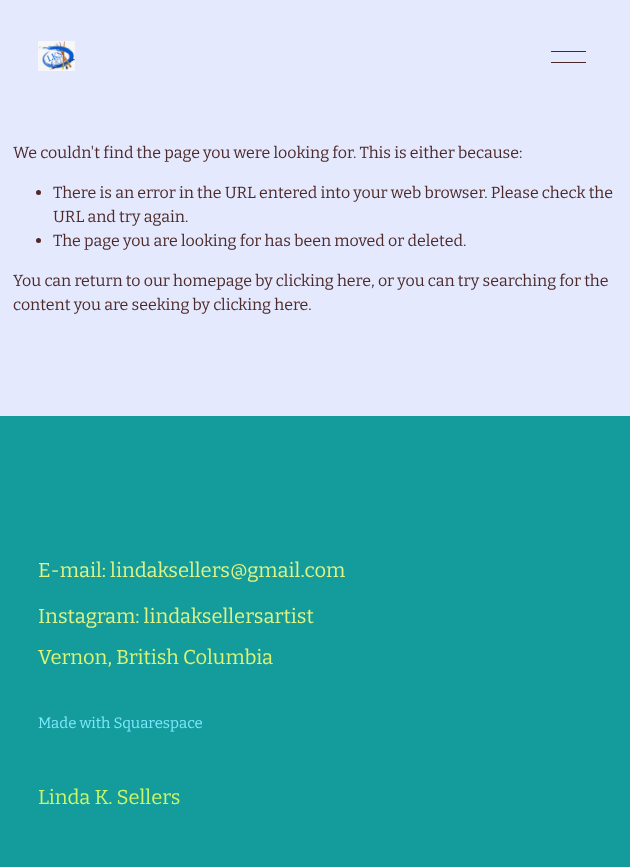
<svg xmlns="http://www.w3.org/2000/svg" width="630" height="867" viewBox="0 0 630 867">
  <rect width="100%" height="100%" fill="#e5e9fd"/>
  <image x="38" y="41" width="37" height="30" href="img1.png"/>
  <rect x="551" y="51" width="35" height="1" fill="#4c2929"/>
  <rect x="551" y="62" width="35" height="1" fill="#4c2929"/>
  <text x="13" y="158" font-family="Bitter" font-size="16" fill="#4c2929">We couldn't find the page you were looking for. This is either because:</text>
  <circle cx="38.5" cy="192.5" r="2.5" fill="#4c2929"/>
  <text x="53" y="198" font-family="Bitter" font-size="16" fill="#4c2929">There is an error in the URL entered into your web browser. Please check the</text>
  <text x="53" y="222" font-family="Bitter" font-size="16" fill="#4c2929">URL and try again.</text>
  <circle cx="38.5" cy="240.5" r="2.5" fill="#4c2929"/>
  <text x="53" y="246" font-family="Bitter" font-size="16" fill="#4c2929">The page you are looking for has been moved or deleted.</text>
  <text x="13" y="286" font-family="Bitter" font-size="16" fill="#4c2929">You can return to our homepage by clicking here, or you can try searching for the</text>
  <text x="13" y="310" font-family="Bitter" font-size="16" fill="#4c2929">content you are seeking by clicking here.</text>
  <rect x="0" y="416" width="630" height="451" fill="#149b9b"/>
  <text x="38" y="577" font-family="Bitter" font-size="20.2" fill="#def486">E-mail: lindaksellers@gmail.com</text>
  <text x="38" y="623" font-family="Bitter" font-size="20.2" fill="#def486">Instagram: lindaksellersartist</text>
  <text x="38" y="664" font-family="Bitter" font-size="20.2" fill="#dcf572">Vernon, British Columbia</text>
  <text x="38" y="728" font-family="Bitter" font-size="15" fill="#7fe8ff">Made with Squarespace</text>
  <text x="38" y="804" font-family="Bitter" font-size="20.2" fill="#caf767">Linda K. Sellers</text>
</svg>
